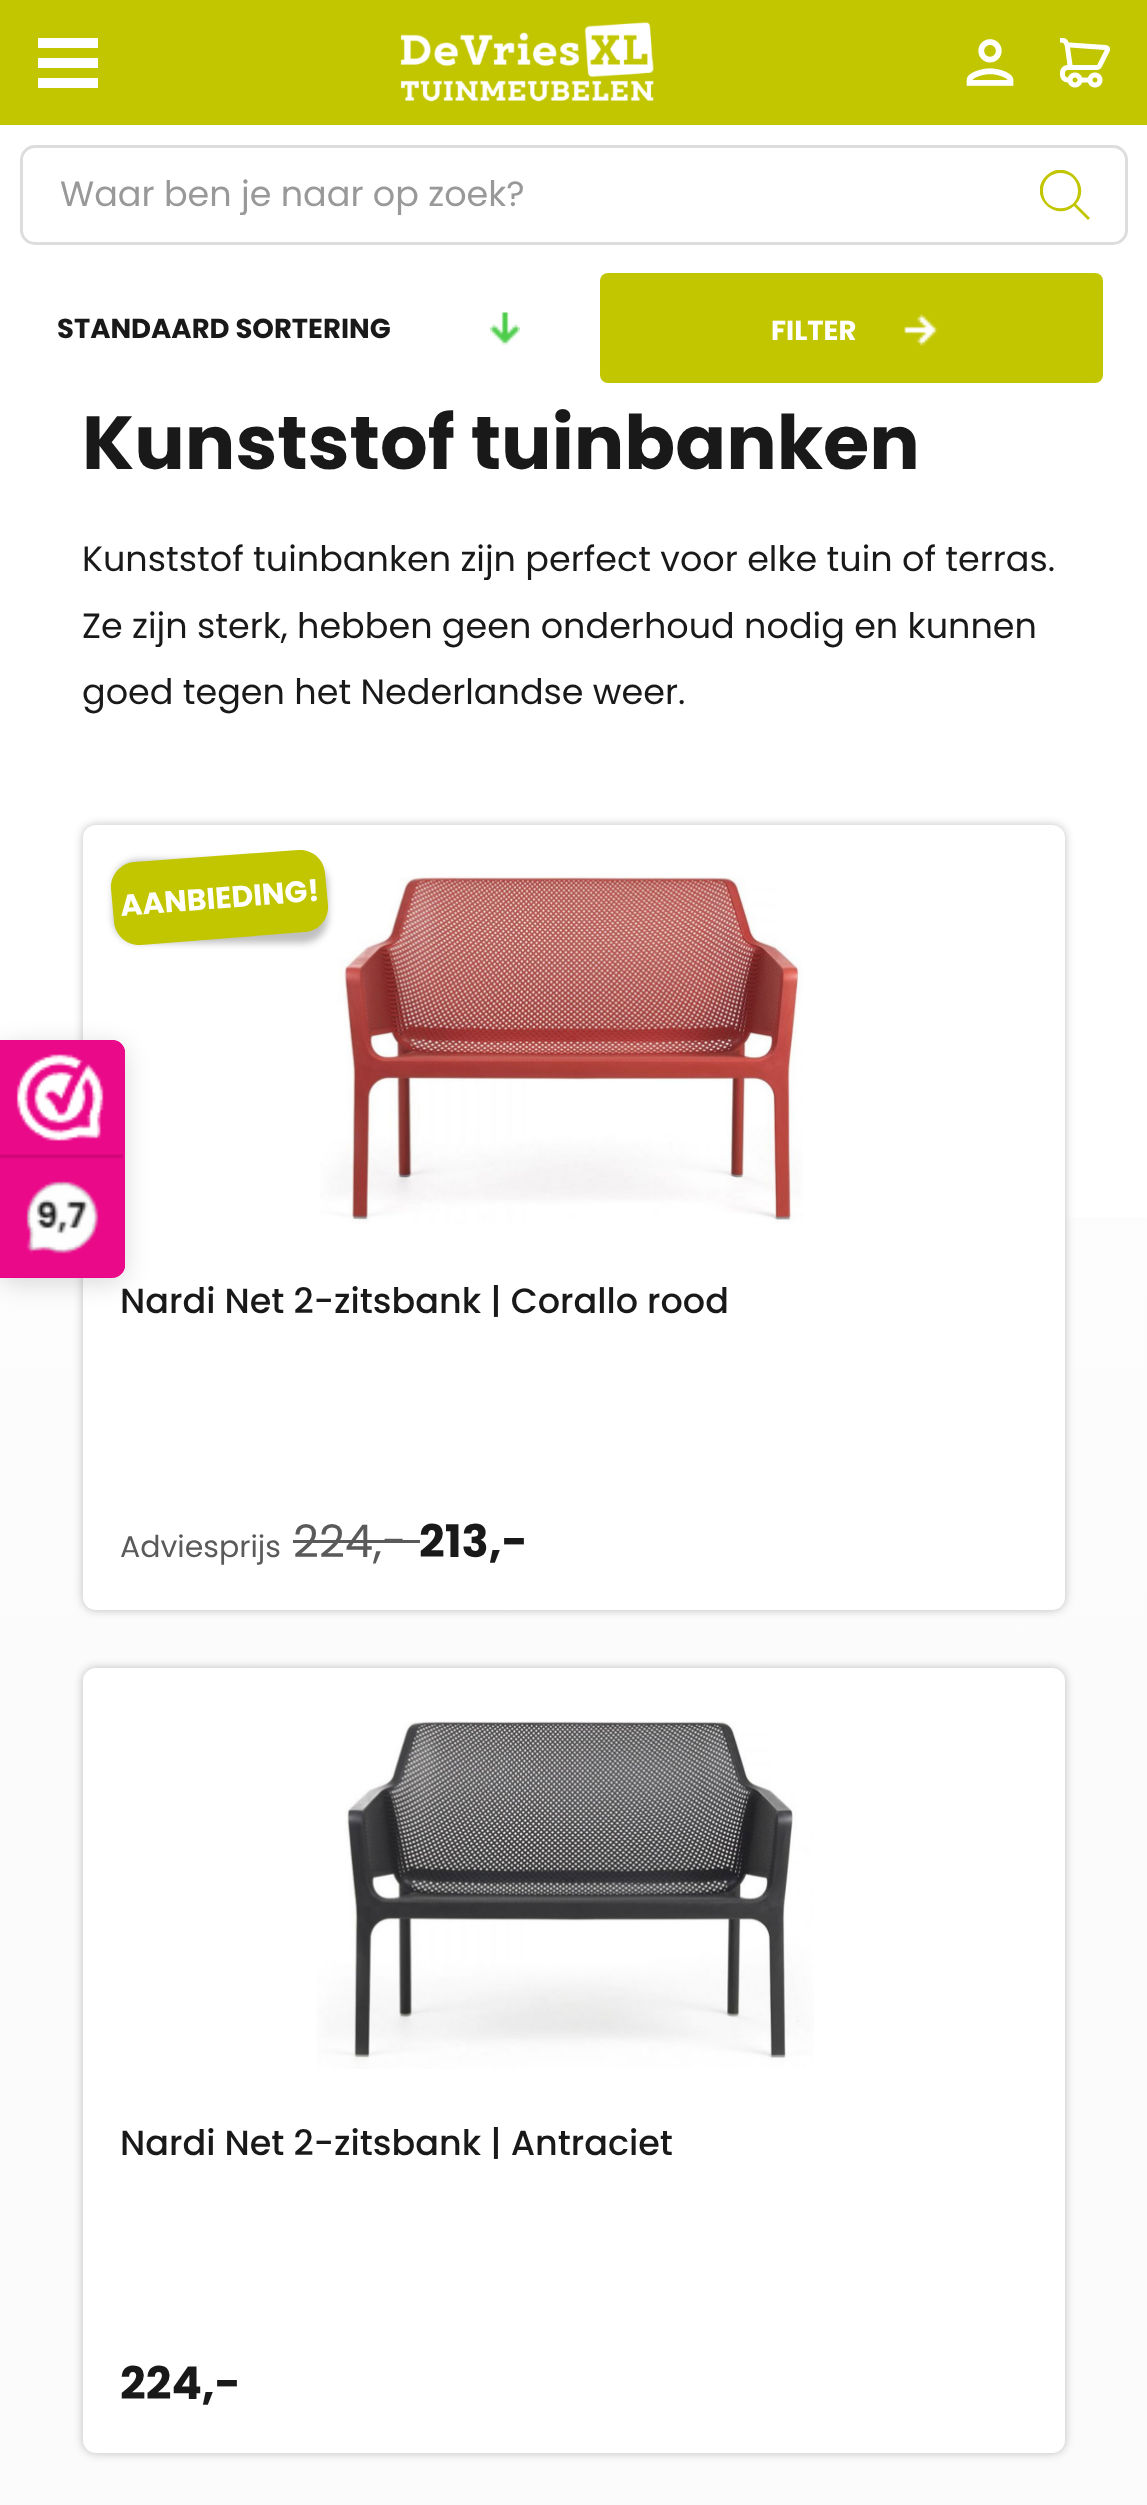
<svg xmlns="http://www.w3.org/2000/svg" width="1147" height="2505" viewBox="0 0 1147 2505">
  <defs>
    <clipPath id="clip1"><rect x="1040" y="170" width="50" height="50"/></clipPath>
    <linearGradient id="g1" gradientUnits="userSpaceOnUse" x1="574" y1="245" x2="574" y2="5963"><stop offset="0.02" stop-color="#ffffff"/><stop offset="0.26" stop-color="#fbfbfb"/></linearGradient>
    <filter id="blur1" x="-50%" y="-200%" width="200%" height="500%"><feGaussianBlur stdDeviation="5"/></filter>
    <filter id="blur2" x="-50%" y="-200%" width="200%" height="500%"><feGaussianBlur stdDeviation="3.5"/></filter>
    <filter id="blur3" x="-50%" y="-200%" width="200%" height="500%"><feGaussianBlur stdDeviation="12.5"/></filter>
  </defs>
  <rect width="100%" height="100%" fill="#ffffff"/>
  <rect x="0" y="0" width="1147" height="125" fill="#c2c600"/>
  <path d="M38 38V48H98V38ZM38 68V58H98V68ZM38 88V78H98V88Z" fill="#ffffff" fill-rule="evenodd"/>
  <image x="400" y="22" width="254" height="80" href="img1.png"/>
  <image x="966" y="39" width="48" height="47" href="img2.png"/>
  <image x="1060" y="38" width="50" height="50" href="img3.png"/>
  <rect x="21.5" y="146.5" width="1105" height="97" rx="13.5" fill="none" stroke="#dddddd" stroke-width="3"/>
  <text x="60" y="206" font-family="Poppins" font-size="35" fill="#999999">Waar ben je naar op zoek?</text>
  <g clip-path="url(#clip1)">
    <path d="M1090 218L1076 204C1093 185 1065 157 1046 176C1027 195 1055 223 1074 206L1088 220ZM1043 191C1043 167 1078 167 1078 191C1078 214 1043 214 1043 191Z" fill="#c2c600"/>
  </g>
  <rect x="0" y="1217" width="1147" height="1288" fill="url(#g1)"/>
  <image x="490" y="312" width="30" height="33" href="img4.png"/>
  <text x="57" y="338" font-family="Poppins" font-size="27.5" font-weight="bold" fill="#191919">STANDAARD SORTERING</text>
  <rect x="600" y="273" width="503" height="110" rx="8" fill="#c2c600"/>
  <image x="904" y="314" width="34" height="32" href="img5.png"/>
  <text x="771" y="340" font-family="Poppins" font-size="27.5" font-weight="bold" fill="#ffffff">FILTER</text>
  <text x="82" y="469" font-family="Poppins" font-size="75" font-weight="bold" fill="#191919">Kunststof tuinbanken</text>
  <text x="82" y="571" font-family="Poppins" font-size="35" fill="#191919">Kunststof tuinbanken zijn perfect voor elke tuin of terras.</text>
  <text x="82" y="638" font-family="Poppins" font-size="35" fill="#191919">Ze zijn sterk, hebben geen onderhoud nodig en kunnen</text>
  <text x="82" y="704" font-family="Poppins" font-size="35" fill="#191919">goed tegen het Nederlandse weer.</text>
  <rect x="83" y="825" width="982" height="785" rx="13" fill="#000000" fill-opacity="0.25" filter="url(#blur1)"/>
  <rect x="83" y="825" width="982" height="785" rx="13" fill="#ffffff"/>
  <image x="320" y="876" width="483" height="348" href="img6.png"/>
  <rect x="113" y="860" width="215" height="83" rx="25" fill="#000000" fill-opacity="0.25" filter="url(#blur2)"/>
  <path d="M134 862L298 850C312 849 324 859 325 873L328 905C329 919 319 931 305 932L141 945C127 946 115 935 114 922L111 889C110 875 121 863 134 862Z" fill="#c2c600"/>
  <text x="121" y="916" transform="rotate(-4.4 121 916)" font-family="Poppins" font-size="30" font-weight="bold" fill="#ffffff">AANBIEDING!</text>
  <text x="120" y="1313" font-family="Poppins" font-size="35" font-weight="500" fill="#191919">Nardi Net 2-zitsbank | Corallo rood</text>
  <text x="120" y="1557" font-family="Poppins" font-size="30" fill="#5a5a5a">Adviesprijs</text>
  <text x="293" y="1557" font-family="Poppins" font-size="45" fill="#5a5a5a">224,-</text>
  <text x="419" y="1557" font-family="Poppins" font-size="45" font-weight="bold" fill="#191919">213,-</text>
  <rect x="293" y="1540" width="127" height="3" fill="#5a5a5a"/>
  <rect x="83" y="1668" width="982" height="785" rx="13" fill="#000000" fill-opacity="0.25" filter="url(#blur1)"/>
  <rect x="83" y="1668" width="982" height="785" rx="13" fill="#ffffff"/>
  <image x="317" y="1721" width="497" height="348" href="img7.png"/>
  <text x="120" y="2155" font-family="Poppins" font-size="35" font-weight="500" fill="#191919">Nardi Net 2-zitsbank | Antraciet</text>
  <text x="120" y="2399" font-family="Poppins" font-size="45" font-weight="bold" fill="#191919">224,-</text>
  <rect x="0" y="1045" width="125" height="238" rx="13" fill="#000000" fill-opacity="0.15" filter="url(#blur3)"/>
  <path d="M0 1040H112C119 1040 125 1046 125 1053V1265C125 1272 119 1278 112 1278H0Z" fill="#ec008b"/>
  <image x="0" y="1040" width="125" height="238" href="img8.png"/>
</svg>
